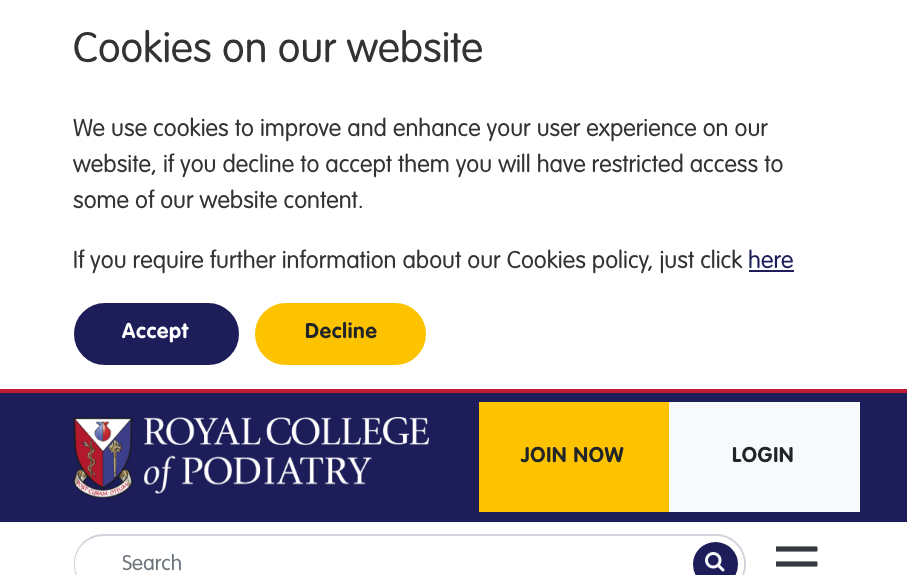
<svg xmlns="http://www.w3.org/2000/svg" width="907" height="575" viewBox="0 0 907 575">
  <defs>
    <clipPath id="clip1"><rect x="123" y="552" width="518" height="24"/></clipPath>
  </defs>
  <rect width="100%" height="100%" fill="#ffffff"/>
  <rect x="0" y="389" width="907" height="4" fill="#be1c33"/>
  <text x="73" y="62" font-family="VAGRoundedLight" font-size="42" font-weight="300" fill="#333333">Cookies on our website</text>
  <text x="73" y="136" font-family="VAGRoundedLight" font-size="24" font-weight="300" fill="#333333">We use cookies to improve and enhance your user experience on our</text>
  <text x="73" y="172" font-family="VAGRoundedLight" font-size="24" font-weight="300" fill="#333333">website, if you decline to accept them you will have restricted access to</text>
  <text x="73" y="208" font-family="VAGRoundedLight" font-size="24" font-weight="300" fill="#333333">some of our website content.</text>
  <text x="73" y="268" font-family="VAGRoundedLight" font-size="24" font-weight="300" fill="#333333">If you require further information about our Cookies policy, just click</text>
  <text x="748" y="268" font-family="VAGRoundedLight" font-size="24" font-weight="300" fill="#1d1d59">here</text>
  <rect x="749" y="270" width="45" height="2" fill="#1d1d59"/>
  <rect x="75" y="304" width="163" height="60" rx="30" fill="#1d1d59" stroke="#1d1d59" stroke-width="2"/>
  <text x="122" y="338" font-family="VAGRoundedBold" font-size="21" font-weight="bold" letter-spacing="0.75" fill="#ffffff">Accept</text>
  <rect x="256" y="304" width="169" height="60" rx="30" fill="#fdc300" stroke="#fdc300" stroke-width="2"/>
  <text x="305" y="338" font-family="VAGRoundedBold" font-size="21" font-weight="bold" letter-spacing="0.75" fill="#212529">Decline</text>
  <rect x="0" y="393" width="907" height="129" fill="#1d1d59"/>
  <image x="73" y="417" width="356" height="81" href="img1.png"/>
  <rect x="479" y="402" width="190" height="110" fill="#fdc300"/>
  <text x="521" y="462" font-family="VAGRoundedBold" font-size="21" font-weight="bold" letter-spacing="0.75" fill="#212529">JOIN NOW</text>
  <rect x="669" y="402" width="191" height="110" fill="#f8f9fa"/>
  <text x="732" y="462" font-family="VAGRoundedBold" font-size="21" font-weight="bold" letter-spacing="0.75" fill="#212529">LOGIN</text>
  <path d="M687 534H716C732 534 746 547 746 564C746 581 732 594 716 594H687ZM687 536H716C731 536 744 548 744 564C744 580 731 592 716 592H687Z" fill="#ced4da" fill-rule="evenodd"/>
  <path d="M104 534H688V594H104C87 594 74 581 74 564C74 547 87 534 104 534ZM104 536H688V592H104C88 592 75 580 75 564C75 548 88 536 104 536Z" fill="#ced4da" fill-rule="evenodd"/>
  <g clip-path="url(#clip1)">
    <text x="122" y="570" font-family="VAGRoundedLight" font-size="21" font-weight="300" fill="#6c757d">Search</text>
  </g>
  <circle cx="715.5" cy="564.5" r="25.5" fill="#1d1d59" stroke="#ffffff" stroke-width="6"/>
  <image x="705" y="552" width="20" height="20" href="img2.png"/>
  <image x="776" y="546" width="42" height="21" href="img3.png"/>
</svg>
